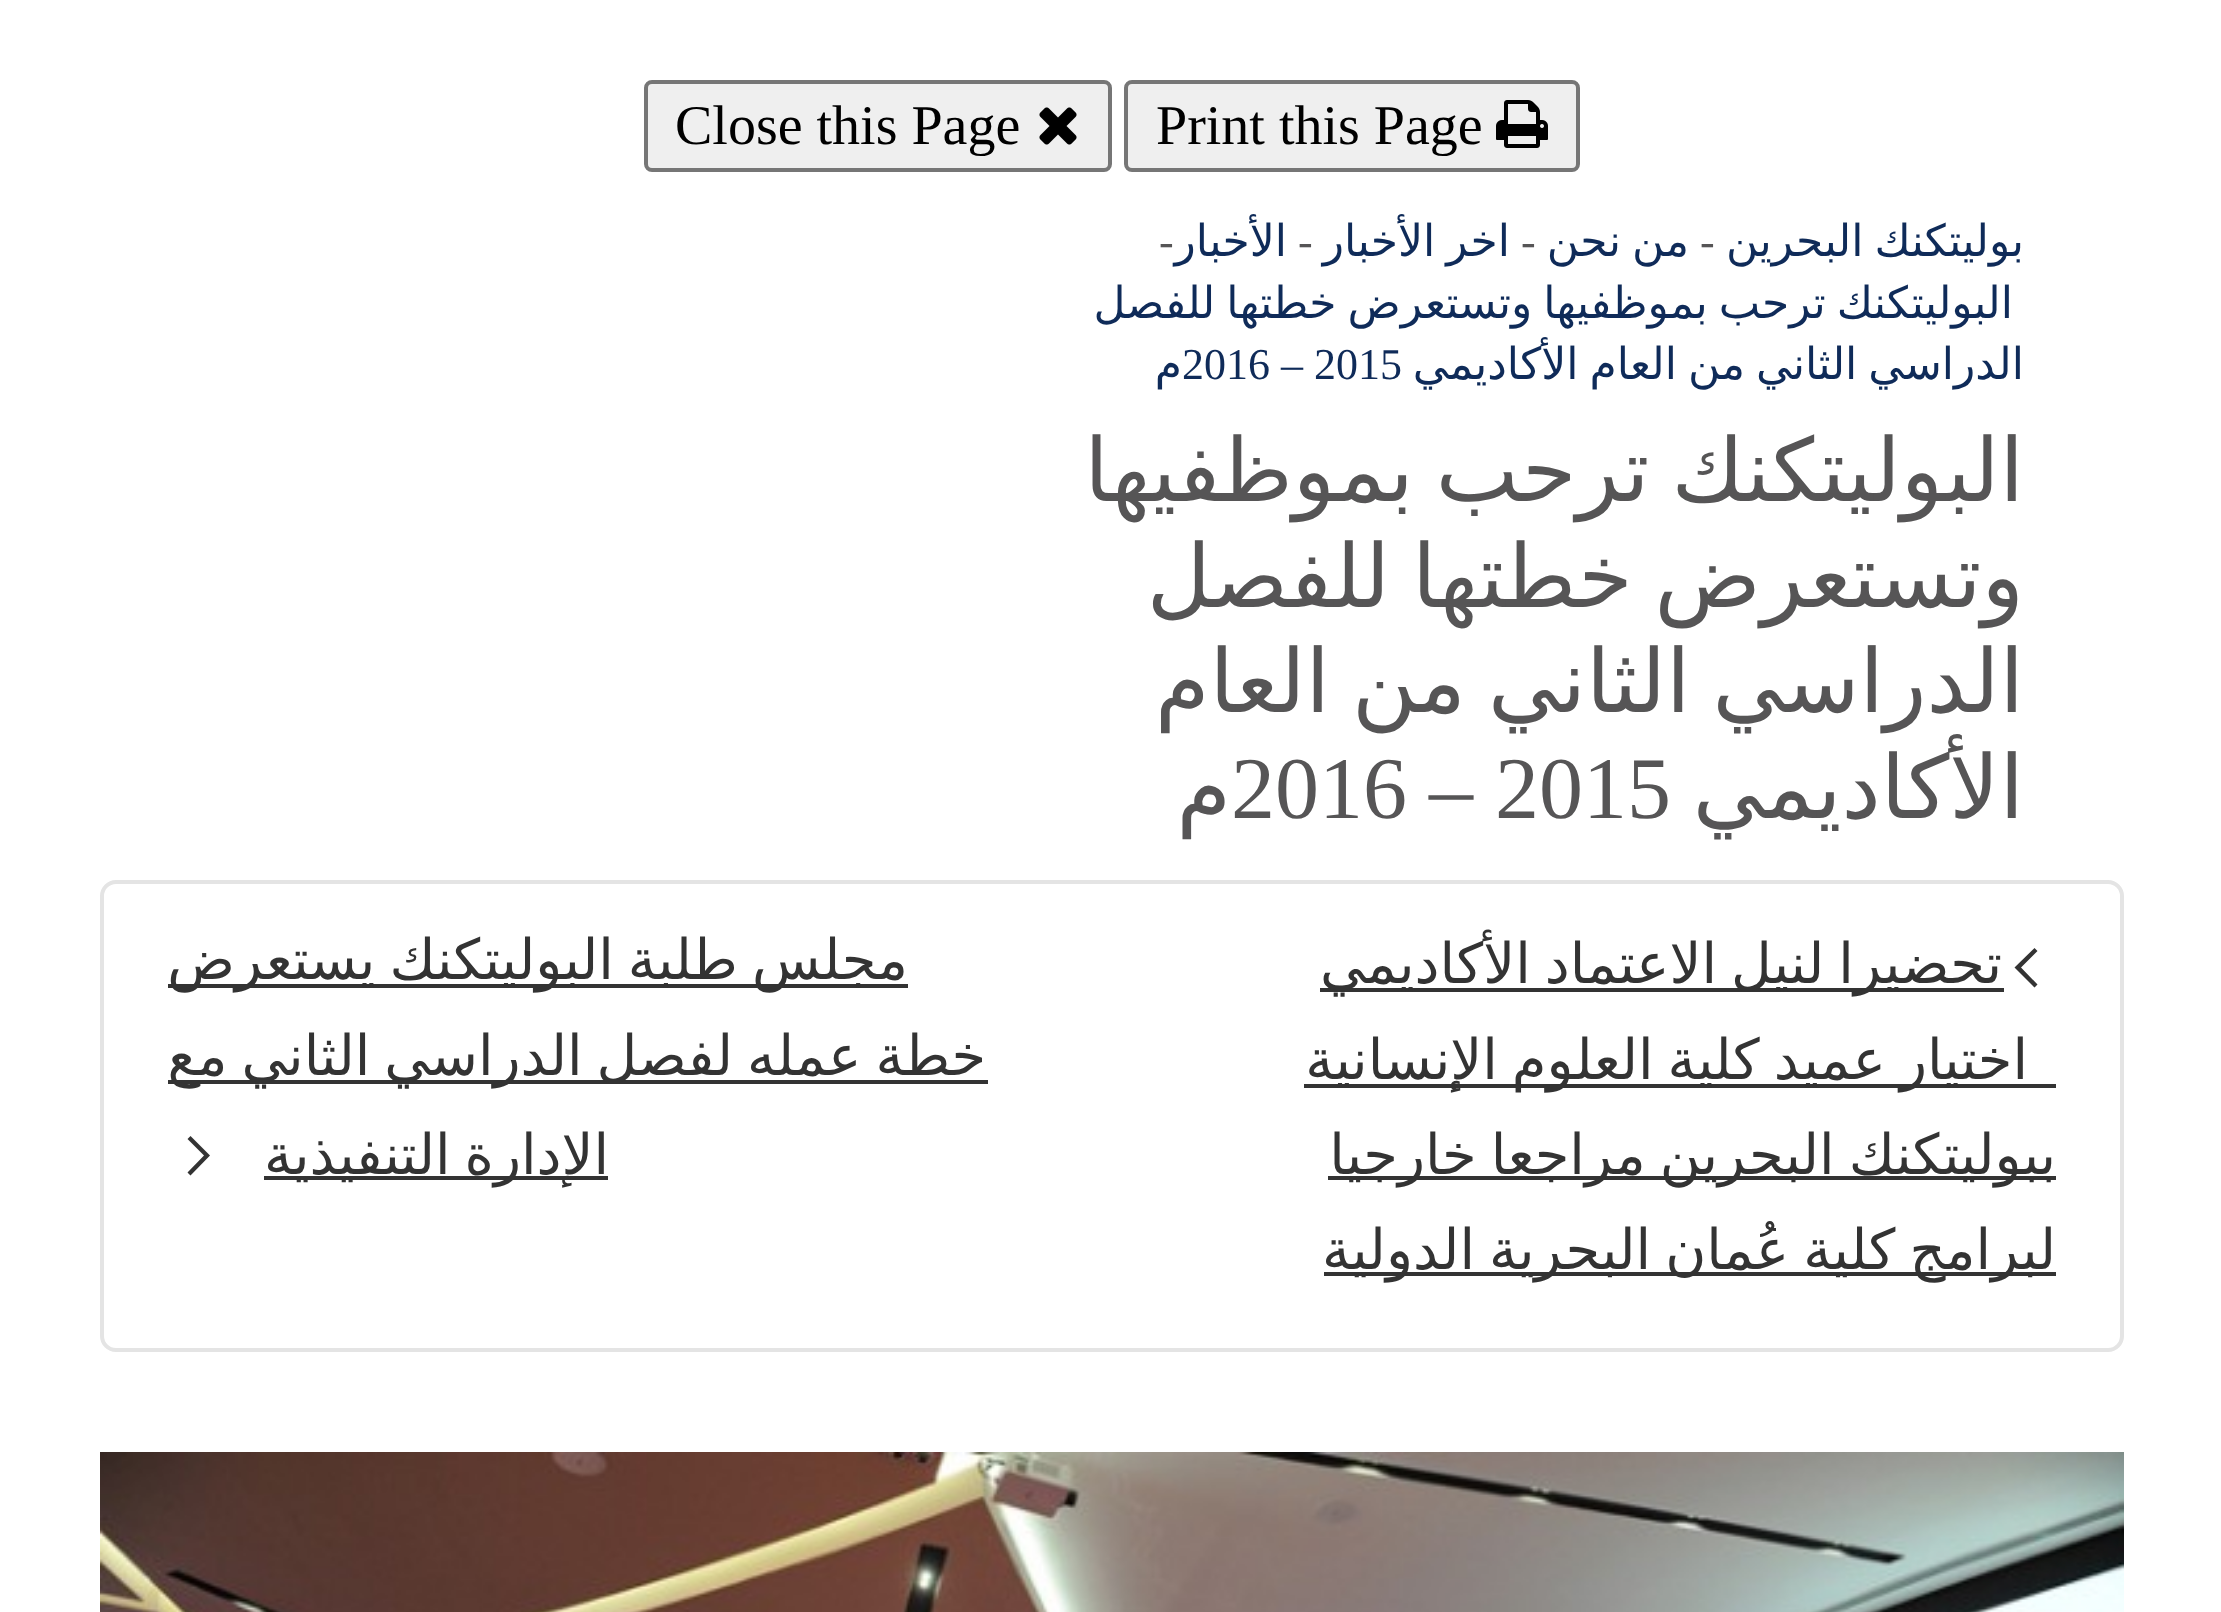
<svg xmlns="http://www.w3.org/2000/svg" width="2221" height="1612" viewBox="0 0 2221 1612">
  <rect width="100%" height="100%" fill="#ffffff"/>
  <rect x="1126" y="82" width="452" height="88" rx="6" fill="#efefef" stroke="#767676" stroke-width="4"/>
  <image x="1496" y="100" width="52" height="48" href="img1.png"/>
  <text x="1156" y="144" font-family="Liberation Serif" font-size="56" fill="#000000">Print this Page</text>
  <rect x="646" y="82" width="464" height="88" rx="6" fill="#efefef" stroke="#767676" stroke-width="4"/>
  <image x="1039" y="107" width="38" height="38" href="img2.png"/>
  <text x="675" y="144" font-family="Liberation Serif" font-size="56" fill="#000000">Close this Page</text>
  <text x="2024" y="256" word-spacing="-3" font-family="DejaVu Sans" font-size="44" direction="rtl" fill="#0f2b59">بوليتكنك البحرين</text>
  <text x="1700" y="256" font-family="Liberation Serif" font-size="44" fill="#565556">-</text>
  <text x="1689" y="256" word-spacing="-3" font-family="DejaVu Sans" font-size="44" direction="rtl" fill="#0f2b59">من نحن</text>
  <text x="1521" y="256" font-family="Liberation Serif" font-size="44" fill="#565556">-</text>
  <text x="1510" y="256" word-spacing="-3" font-family="DejaVu Sans" font-size="44" direction="rtl" fill="#0f2b59">اخر الأخبار</text>
  <text x="1298" y="256" font-family="Liberation Serif" font-size="44" fill="#565556">-</text>
  <text x="1287" y="256" font-family="DejaVu Sans" font-size="44" direction="rtl" fill="#0f2b59">الأخبار</text>
  <text x="1159" y="256" font-family="Liberation Serif" font-size="44" fill="#565556">-</text>
  <text x="2013" y="318" word-spacing="-3" font-family="DejaVu Sans" font-size="44" direction="rtl" fill="#0f2b59">البوليتكنك ترحب بموظفيها وتستعرض خطتها للفصل</text>
  <text x="2024" y="379" word-spacing="-3" font-family="DejaVu Sans" font-size="44" direction="rtl" fill="#0f2b59">الدراسي الثاني</text>
  <text x="1745" y="379" word-spacing="-3" font-family="DejaVu Sans" font-size="44" direction="rtl" fill="#0f2b59">من العام الأكاديمي</text>
  <text x="1182" y="379" font-family="Liberation Serif" font-size="44" fill="#0f2b59">2016 – 2015</text>
  <text x="1182" y="379" font-family="DejaVu Sans" font-size="44" direction="rtl" fill="#0f2b59">م</text>
  <text x="2024" y="501" word-spacing="-6" font-family="DejaVu Sans" font-size="88" direction="rtl" fill="#565556">البوليتكنك ترحب بموظفيها</text>
  <text x="2024" y="607" word-spacing="-6" font-family="DejaVu Sans" font-size="88" direction="rtl" fill="#565556">وتستعرض خطتها للفصل</text>
  <text x="2024" y="712" word-spacing="-6" font-family="DejaVu Sans" font-size="88" direction="rtl" fill="#565556">الدراسي الثاني</text>
  <text x="1466" y="712" word-spacing="-6" font-family="DejaVu Sans" font-size="88" direction="rtl" fill="#565556">من العام</text>
  <text x="2024" y="818" font-family="DejaVu Sans" font-size="88" direction="rtl" fill="#565556">الأكاديمي</text>
  <text x="1231" y="818" font-family="Liberation Serif" font-size="88" fill="#565556">2016 – 2015</text>
  <text x="1231" y="818" font-family="DejaVu Sans" font-size="88" direction="rtl" fill="#565556">م</text>
  <rect x="102" y="882" width="2020" height="468" rx="14" fill="none" stroke="#e4e4e4" stroke-width="4"/>
  <path d="M2034.5 987.5L2014.5 967.5L2034.5 948L2037.5 951L2021 967.5L2037.5 984.5Z" fill="#333333"/>
  <rect x="1320" y="988" width="684" height="4" fill="#333333"/>
  <text x="2002" y="983" word-spacing="-3.75" font-family="DejaVu Sans" font-size="56" direction="rtl" fill="#333333">تحضيرا لنيل الاعتماد الأكاديمي</text>
  <rect x="1304" y="1084" width="752" height="4" fill="#333333"/>
  <text x="2028" y="1079" word-spacing="-3.75" font-family="DejaVu Sans" font-size="56" direction="rtl" fill="#333333">اختيار عميد كلية العلوم الإنسانية</text>
  <rect x="1328" y="1176" width="728" height="4" fill="#333333"/>
  <text x="2056" y="1174" word-spacing="-3.75" font-family="DejaVu Sans" font-size="56" direction="rtl" fill="#333333">ببوليتكنك البحرين مراجعا خارجيا</text>
  <rect x="1324" y="1272" width="732" height="4" fill="#333333"/>
  <text x="2056" y="1269" word-spacing="-3.75" font-family="DejaVu Sans" font-size="56" direction="rtl" fill="#333333">لبرامج كلية عُمان البحرية الدولية</text>
  <rect x="168" y="984" width="740" height="4" fill="#333333"/>
  <text x="908" y="979" word-spacing="-3.75" font-family="DejaVu Sans" font-size="56" direction="rtl" fill="#333333">مجلس طلبة البوليتكنك يستعرض</text>
  <rect x="168" y="1080" width="820" height="4" fill="#333333"/>
  <text x="986" y="1075" word-spacing="-3.75" font-family="DejaVu Sans" font-size="56" direction="rtl" fill="#333333">خطة عمله لفصل الدراسي الثاني مع</text>
  <rect x="264" y="1176" width="344" height="4" fill="#333333"/>
  <text x="609" y="1174" word-spacing="-3.75" font-family="DejaVu Sans" font-size="56" direction="rtl" fill="#333333">الإدارة التنفيذية</text>
  <path d="M190.5 1175.5L187.5 1172.5L204 1155.5L187.5 1139L190.5 1136L210 1155.5Z" fill="#333333"/>
  <image x="100" y="1452" width="2024" height="160" href="img3.png"/>
</svg>
